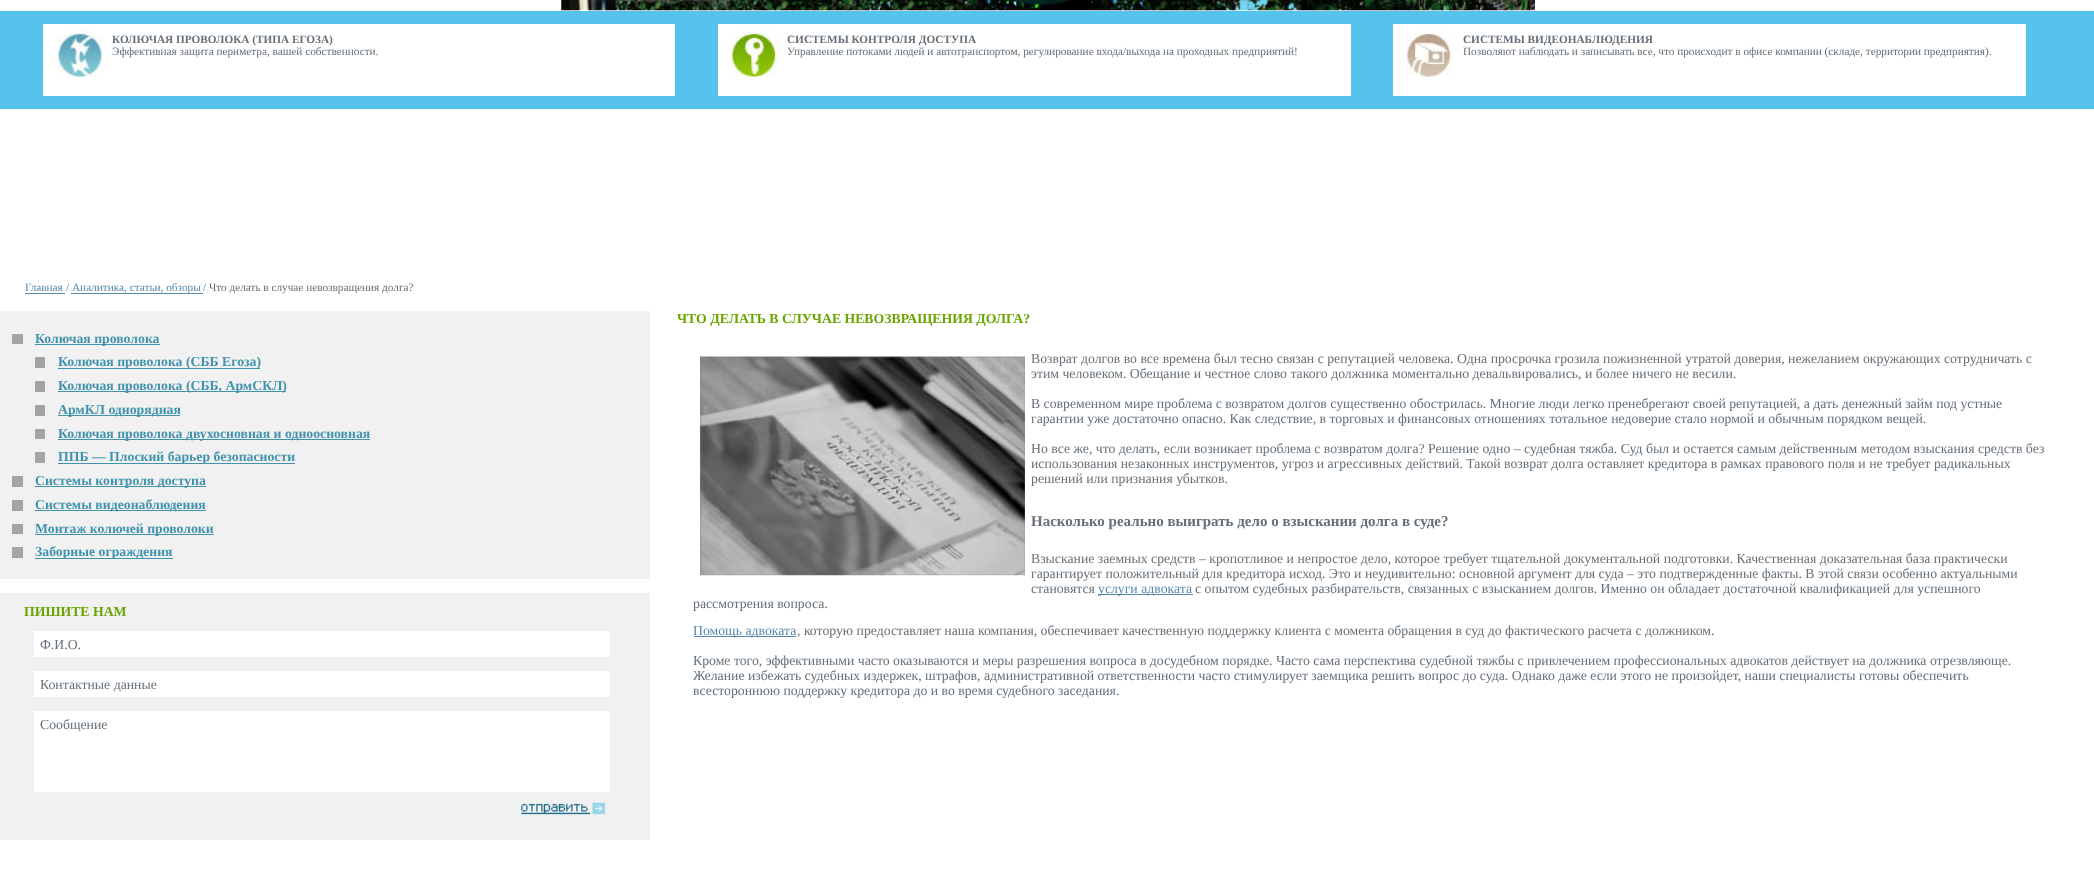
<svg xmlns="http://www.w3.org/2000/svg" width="2094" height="869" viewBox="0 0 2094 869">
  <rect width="100%" height="100%" fill="#ffffff"/>
  <image x="561" y="0" width="974" height="11" href="img1.png"/>
  <rect x="0" y="11" width="2094" height="98" fill="#55c3eb"/>
  <rect x="43" y="24" width="632" height="72" fill="#ffffff"/>
  <image x="55" y="27" width="48" height="52" href="img2.png"/>
  <text x="112" y="43" font-family="Liberation Serif" font-size="11.25" font-weight="bold" fill="#667079">КОЛЮЧАЯ ПРОВОЛОКА (ТИПА ЕГОЗА)</text>
  <text x="112" y="55" font-family="Liberation Serif" font-size="11.25" fill="#667079">Эффективная защита периметра, вашей собственности.</text>
  <rect x="718" y="24" width="633" height="72" fill="#ffffff"/>
  <image x="730" y="26" width="48" height="51" href="img3.png"/>
  <text x="787" y="43" font-family="Liberation Serif" font-size="11.25" font-weight="bold" fill="#667079">СИСТЕМЫ КОНТРОЛЯ ДОСТУПА</text>
  <text x="787" y="55" font-family="Liberation Serif" font-size="11.25" fill="#667079">Управление потоками людей и автотранспортом, регулирование входа/выхода на проходных предприятий!</text>
  <rect x="1393" y="24" width="633" height="72" fill="#ffffff"/>
  <image x="1405" y="27" width="48" height="52" href="img4.png"/>
  <text x="1463" y="43" font-family="Liberation Serif" font-size="11.25" font-weight="bold" fill="#667079">СИСТЕМЫ ВИДЕОНАБЛЮДЕНИЯ</text>
  <text x="1463" y="55" font-family="Liberation Serif" font-size="11.25" fill="#667079">Позволяют наблюдать и записывать все, что происходит в офисе компании (складе, территории предприятия).</text>
  <text x="25" y="291" font-family="Liberation Serif" font-size="11.25" fill="#5589ae">Главная</text>
  <rect x="25" y="293" width="40" height="1" fill="#5589ae"/>
  <text x="66" y="291" font-family="Liberation Serif" font-size="11.25" fill="#667079">/</text>
  <rect x="71" y="293" width="132" height="1" fill="#5589ae"/>
  <text x="72" y="291" font-family="Liberation Serif" font-size="11.25" fill="#5589ae">Аналитика, статьи, обзоры</text>
  <text x="203" y="291" font-family="Liberation Serif" font-size="11.25" fill="#667079">/ Что делать в случае невозвращения долга?</text>
  <rect x="0" y="311" width="650" height="268" fill="#f1f1f1"/>
  <rect x="12" y="334" width="11" height="10" fill="#a4a4a4"/>
  <rect x="35" y="344" width="125" height="1" fill="#4294ae"/>
  <text x="35" y="343" font-family="Liberation Serif" font-size="13.75" font-weight="bold" fill="#4294ae">Колючая проволока</text>
  <rect x="35" y="357" width="10" height="11" fill="#a4a4a4"/>
  <rect x="58" y="368" width="202" height="1" fill="#4294ae"/>
  <text x="58" y="366" font-family="Liberation Serif" font-size="13.75" font-weight="bold" fill="#4294ae">Колючая проволока (СББ Егоза)</text>
  <rect x="35" y="381" width="10" height="11" fill="#a4a4a4"/>
  <rect x="58" y="391" width="228" height="1" fill="#4294ae"/>
  <text x="58" y="390" font-family="Liberation Serif" font-size="13.75" font-weight="bold" fill="#4294ae">Колючая проволока (СББ, АрмСКЛ)</text>
  <rect x="35" y="405" width="10" height="11" fill="#a4a4a4"/>
  <rect x="58" y="415" width="122" height="1" fill="#4294ae"/>
  <text x="58" y="414" font-family="Liberation Serif" font-size="13.75" font-weight="bold" fill="#4294ae">АрмКЛ однорядная</text>
  <rect x="35" y="429" width="10" height="10" fill="#a4a4a4"/>
  <rect x="58" y="439" width="312" height="1" fill="#4294ae"/>
  <text x="58" y="438" font-family="Liberation Serif" font-size="13.75" font-weight="bold" fill="#4294ae">Колючая проволока двухосновная и одноосновная</text>
  <rect x="35" y="452" width="10" height="11" fill="#a4a4a4"/>
  <rect x="58" y="463" width="237" height="1" fill="#4294ae"/>
  <text x="58" y="461" font-family="Liberation Serif" font-size="13.75" font-weight="bold" fill="#4294ae">ППБ — Плоский барьер безопасности</text>
  <rect x="12" y="476" width="11" height="11" fill="#a4a4a4"/>
  <rect x="35" y="486" width="171" height="1" fill="#4294ae"/>
  <text x="35" y="485" font-family="Liberation Serif" font-size="13.75" font-weight="bold" fill="#4294ae">Системы контроля доступа</text>
  <rect x="12" y="500" width="11" height="11" fill="#a4a4a4"/>
  <rect x="35" y="510" width="171" height="1" fill="#4294ae"/>
  <text x="35" y="509" font-family="Liberation Serif" font-size="13.75" font-weight="bold" fill="#4294ae">Системы видеонаблюдения</text>
  <rect x="12" y="524" width="11" height="10" fill="#a4a4a4"/>
  <rect x="35" y="534" width="179" height="1" fill="#4294ae"/>
  <text x="35" y="533" font-family="Liberation Serif" font-size="13.75" font-weight="bold" fill="#4294ae">Монтаж колючей проволоки</text>
  <rect x="12" y="547" width="11" height="11" fill="#a4a4a4"/>
  <rect x="35" y="558" width="138" height="1" fill="#4294ae"/>
  <text x="35" y="556" font-family="Liberation Serif" font-size="13.75" font-weight="bold" fill="#4294ae">Заборные ограждения</text>
  <rect x="0" y="593" width="650" height="247" fill="#f1f1f1"/>
  <text x="24" y="616" font-family="Liberation Serif" font-size="13.75" font-weight="bold" fill="#6aa500">ПИШИТЕ НАМ</text>
  <rect x="34" y="631" width="576" height="26" fill="#ffffff"/>
  <text x="40" y="649" font-family="Liberation Serif" font-size="13.75" fill="#667079">Ф.И.О.</text>
  <rect x="34" y="671" width="576" height="26" fill="#ffffff"/>
  <text x="40" y="689" font-family="Liberation Serif" font-size="13.75" fill="#667079">Контактные данные</text>
  <rect x="34" y="711" width="576" height="81" fill="#ffffff"/>
  <text x="40" y="729" font-family="Liberation Serif" font-size="13.75" fill="#667079">Сообщение</text>
  <image x="521" y="802" width="85" height="13" href="img5.png"/>
  <text x="677" y="323" font-family="Liberation Serif" font-size="13.75" font-weight="bold" fill="#6aa500">ЧТО ДЕЛАТЬ В СЛУЧАЕ НЕВОЗВРАЩЕНИЯ ДОЛГА?</text>
  <image x="700" y="356" width="325" height="220" href="img6.png"/>
  <text x="1031" y="363" font-family="Liberation Serif" font-size="13.75" fill="#667079">Возврат долгов во все времена был тесно связан с репутацией человека. Одна просрочка грозила пожизненной утратой доверия, нежеланием окружающих сотрудничать с</text>
  <text x="1031" y="378" font-family="Liberation Serif" font-size="13.75" fill="#667079">этим человеком. Обещание и честное слово такого должника моментально девальвировались, и более ничего не весили.</text>
  <text x="1031" y="408" font-family="Liberation Serif" font-size="13.75" fill="#667079">В современном мире проблема с возвратом долгов существенно обострилась. Многие люди легко пренебрегают своей репутацией, а дать денежный займ под устные</text>
  <text x="1031" y="423" font-family="Liberation Serif" font-size="13.75" fill="#667079">гарантии уже достаточно опасно. Как следствие, в торговых и финансовых отношениях тотальное недоверие стало нормой и обычным порядком вещей.</text>
  <text x="1031" y="453" font-family="Liberation Serif" font-size="13.75" fill="#667079">Но все же, что делать, если возникает проблема с возвратом долга? Решение одно – судебная тяжба. Суд был и остается самым действенным методом взыскания средств без</text>
  <text x="1031" y="468" font-family="Liberation Serif" font-size="13.75" fill="#667079">использования незаконных инструментов, угроз и агрессивных действий. Такой возврат долга оставляет кредитора в рамках правового поля и не требует радикальных</text>
  <text x="1031" y="483" font-family="Liberation Serif" font-size="13.75" fill="#667079">решений или признания убытков.</text>
  <text x="1031" y="526" font-family="Liberation Serif" font-size="15" font-weight="bold" fill="#667079">Насколько реально выиграть дело о взыскании долга в суде?</text>
  <text x="1031" y="563" font-family="Liberation Serif" font-size="13.75" fill="#667079">Взыскание заемных средств – кропотливое и непростое дело, которое требует тщательной документальной подготовки. Качественная доказательная база практически</text>
  <text x="1031" y="578" font-family="Liberation Serif" font-size="13.75" fill="#667079">гарантирует положительный для кредитора исход. Это и неудивительно: основной аргумент для суда – это подтвержденные факты. В этой связи особенно актуальными</text>
  <text x="1031" y="593" font-family="Liberation Serif" font-size="13.75" fill="#667079">становятся</text>
  <rect x="1098" y="594" width="95" height="1" fill="#5589ae"/>
  <text x="1098" y="593" font-family="Liberation Serif" font-size="13.75" fill="#5589ae">услуги адвоката</text>
  <text x="1195" y="593" font-family="Liberation Serif" font-size="13.75" fill="#667079">с опытом судебных разбирательств, связанных с взысканием долгов. Именно он обладает достаточной квалификацией для успешного</text>
  <text x="693" y="608" font-family="Liberation Serif" font-size="13.75" fill="#667079">рассмотрения вопроса.</text>
  <rect x="694" y="636" width="102" height="1" fill="#5589ae"/>
  <text x="693" y="635" font-family="Liberation Serif" font-size="13.75" fill="#5589ae">Помощь адвоката</text>
  <text x="797" y="635" font-family="Liberation Serif" font-size="13.75" fill="#667079">, которую предоставляет наша компания, обеспечивает качественную поддержку клиента с момента обращения в суд до фактического расчета с должником.</text>
  <text x="693" y="665" font-family="Liberation Serif" font-size="13.75" fill="#667079">Кроме того, эффективными часто оказываются и меры разрешения вопроса в досудебном порядке. Часто сама перспектива судебной тяжбы с привлечением профессиональных адвокатов действует на должника отрезвляюще.</text>
  <text x="693" y="680" font-family="Liberation Serif" font-size="13.75" fill="#667079">Желание избежать судебных издержек, штрафов, административной ответственности часто стимулирует заемщика решить вопрос до суда. Однако даже если этого не произойдет, наши специалисты готовы обеспечить</text>
  <text x="693" y="695" font-family="Liberation Serif" font-size="13.75" fill="#667079">всестороннюю поддержку кредитора до и во время судебного заседания.</text>
</svg>
